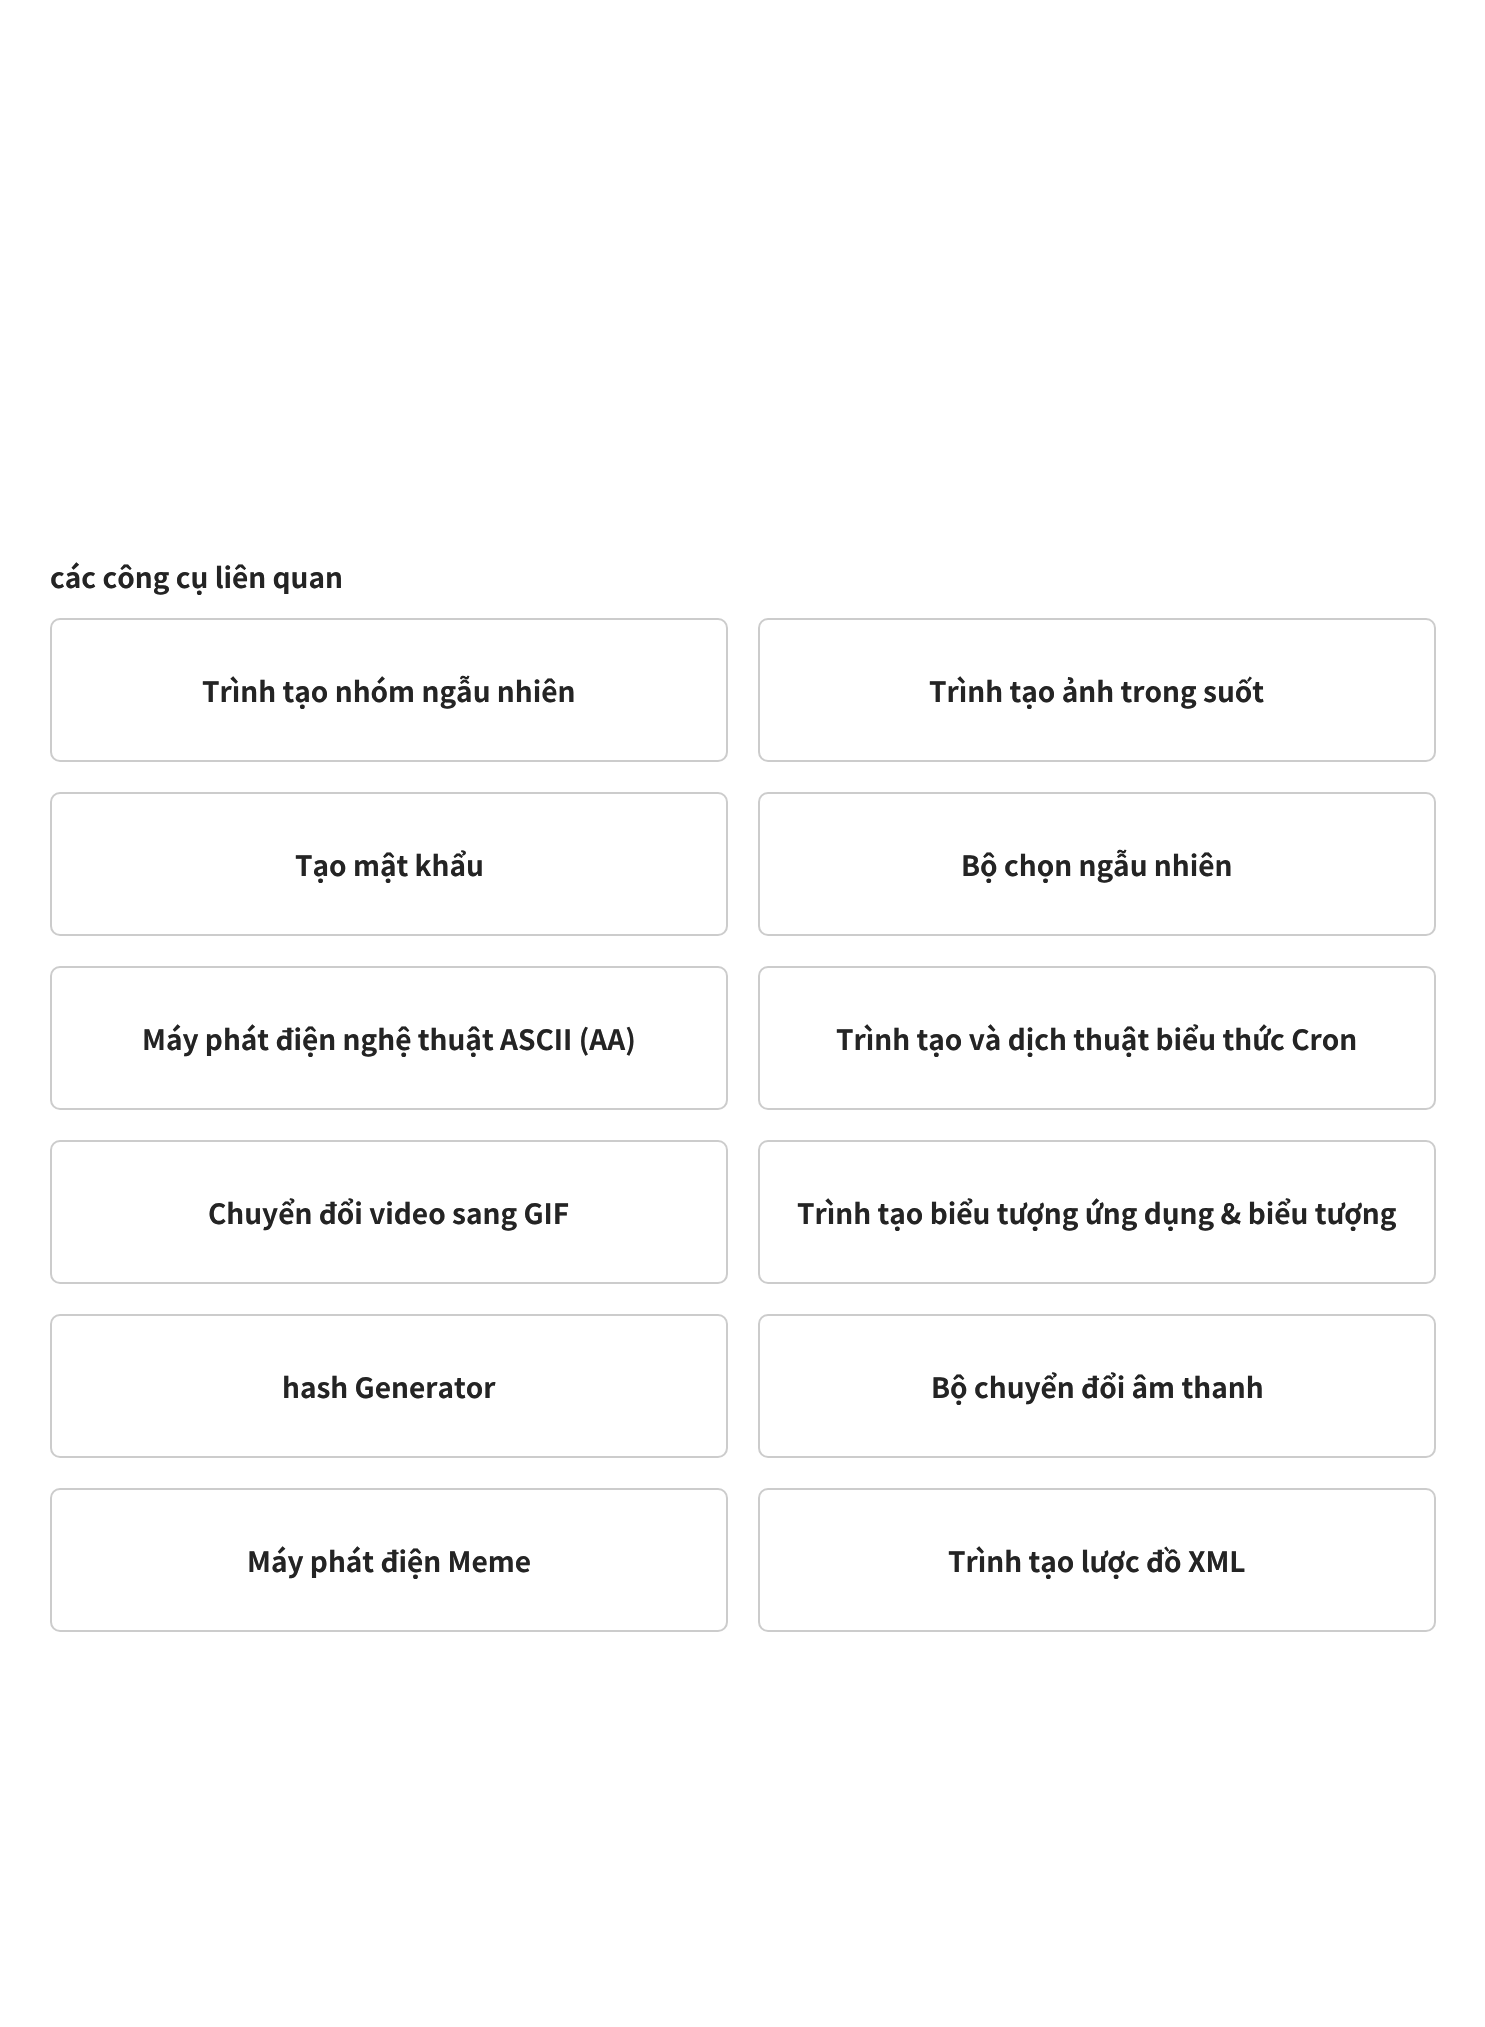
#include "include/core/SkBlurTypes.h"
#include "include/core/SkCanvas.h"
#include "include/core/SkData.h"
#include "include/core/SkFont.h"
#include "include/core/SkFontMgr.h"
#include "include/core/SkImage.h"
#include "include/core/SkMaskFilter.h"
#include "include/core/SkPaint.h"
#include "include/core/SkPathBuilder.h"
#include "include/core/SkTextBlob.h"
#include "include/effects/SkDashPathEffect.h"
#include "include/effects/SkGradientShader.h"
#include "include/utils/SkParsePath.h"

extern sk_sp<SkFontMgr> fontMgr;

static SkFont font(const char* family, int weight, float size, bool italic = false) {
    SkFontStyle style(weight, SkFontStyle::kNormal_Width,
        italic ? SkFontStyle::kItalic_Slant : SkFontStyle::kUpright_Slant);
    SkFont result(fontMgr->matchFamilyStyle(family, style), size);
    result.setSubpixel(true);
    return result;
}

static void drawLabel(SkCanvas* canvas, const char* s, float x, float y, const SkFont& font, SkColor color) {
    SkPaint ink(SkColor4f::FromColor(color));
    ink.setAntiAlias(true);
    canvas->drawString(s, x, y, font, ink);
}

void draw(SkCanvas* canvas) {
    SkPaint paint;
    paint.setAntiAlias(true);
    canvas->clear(0xFFFFFFFF);
    SkFont font1 = font("Noto Sans JP", 700, 28);
    drawLabel(canvas, "các công cụ liên quan", 50, 588, font1, 0xFF242424);
    paint.setStroke(true);
    paint.setStrokeWidth(2);
    paint.setColor(0xFFCCCCCC);
    canvas->drawRoundRect(SkRect::MakeXYWH(51, 619, 676, 142), 9, 9, paint);
    drawLabel(canvas, "Trình tạo nhóm ngẫu nhiên", 202, 702, font1, 0xFF242424);
    canvas->drawRoundRect(SkRect::MakeXYWH(759, 619, 676, 142), 9, 9, paint);
    drawLabel(canvas, "Trình tạo ảnh trong suốt", 929, 702, font1, 0xFF242424);
    canvas->drawRoundRect(SkRect::MakeXYWH(51, 793, 676, 142), 9, 9, paint);
    drawLabel(canvas, "Tạo mật khẩu", 295, 876, font1, 0xFF242424);
    canvas->drawRoundRect(SkRect::MakeXYWH(759, 793, 676, 142), 9, 9, paint);
    drawLabel(canvas, "Bộ chọn ngẫu nhiên", 961, 876, font1, 0xFF242424);
    canvas->drawRoundRect(SkRect::MakeXYWH(51, 967, 676, 142), 9, 9, paint);
    drawLabel(canvas, "Máy phát điện nghệ thuật ASCII (AA)", 142, 1050, font1, 0xFF242424);
    canvas->drawRoundRect(SkRect::MakeXYWH(759, 967, 676, 142), 9, 9, paint);
    drawLabel(canvas, "Trình tạo và dịch thuật biểu thức Cron", 836, 1050, font1, 0xFF242424);
    canvas->drawRoundRect(SkRect::MakeXYWH(51, 1141, 676, 142), 9, 9, paint);
    drawLabel(canvas, "Chuyển đổi video sang GIF", 208, 1224, font1, 0xFF242424);
    canvas->drawRoundRect(SkRect::MakeXYWH(759, 1141, 676, 142), 9, 9, paint);
    drawLabel(canvas, "Trình tạo biểu tượng ứng dụng & biểu tượng", 797, 1224, font1, 0xFF242424);
    canvas->drawRoundRect(SkRect::MakeXYWH(51, 1315, 676, 142), 9, 9, paint);
    drawLabel(canvas, "hash Generator", 282, 1398, font1, 0xFF242424);
    canvas->drawRoundRect(SkRect::MakeXYWH(759, 1315, 676, 142), 9, 9, paint);
    drawLabel(canvas, "Bộ chuyển đổi âm thanh", 931, 1398, font1, 0xFF242424);
    canvas->drawRoundRect(SkRect::MakeXYWH(51, 1489, 676, 142), 9, 9, paint);
    drawLabel(canvas, "Máy phát điện Meme", 247, 1572, font1, 0xFF242424);
    canvas->drawRoundRect(SkRect::MakeXYWH(759, 1489, 676, 142), 9, 9, paint);
    drawLabel(canvas, "Trình tạo lược đồ XML", 948, 1572, font1, 0xFF242424);
}
